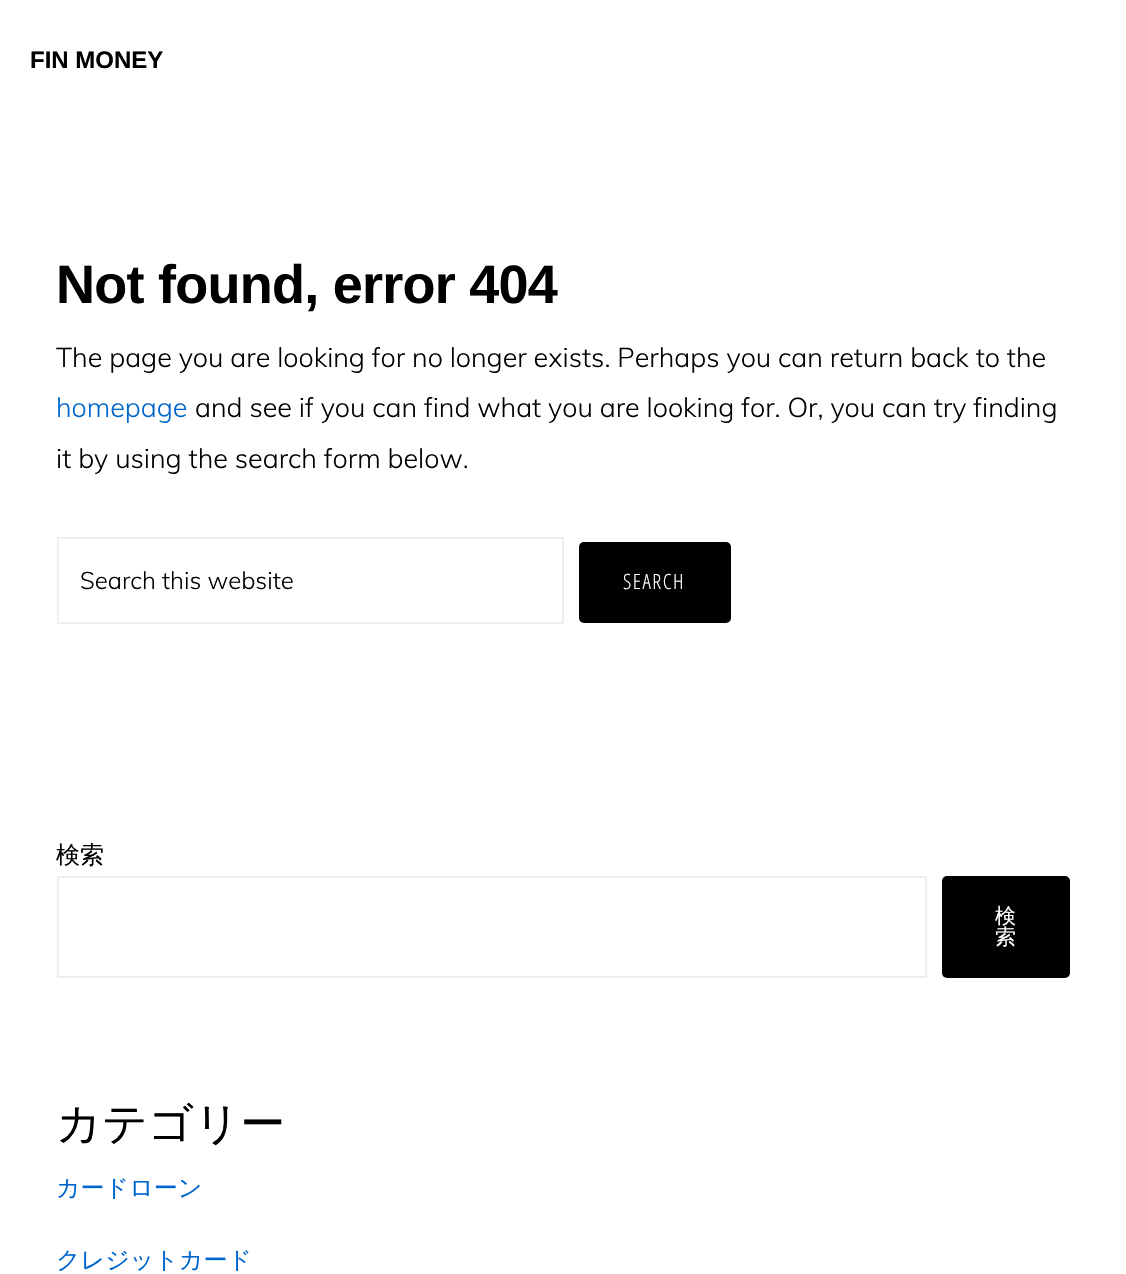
#include "include/core/SkBlurTypes.h"
#include "include/core/SkCanvas.h"
#include "include/core/SkData.h"
#include "include/core/SkFont.h"
#include "include/core/SkFontMgr.h"
#include "include/core/SkImage.h"
#include "include/core/SkMaskFilter.h"
#include "include/core/SkPaint.h"
#include "include/core/SkPathBuilder.h"
#include "include/core/SkTextBlob.h"
#include "include/effects/SkDashPathEffect.h"
#include "include/effects/SkGradientShader.h"
#include "include/utils/SkParsePath.h"

extern sk_sp<SkFontMgr> fontMgr;

static SkFont font(const char* family, int weight, float size, bool italic = false) {
    SkFontStyle style(weight, SkFontStyle::kNormal_Width,
        italic ? SkFontStyle::kItalic_Slant : SkFontStyle::kUpright_Slant);
    SkFont result(fontMgr->matchFamilyStyle(family, style), size);
    result.setSubpixel(true);
    return result;
}

static void drawLabel(SkCanvas* canvas, const char* s, float x, float y, const SkFont& font, SkColor color) {
    SkPaint ink(SkColor4f::FromColor(color));
    ink.setAntiAlias(true);
    canvas->drawString(s, x, y, font, ink);
}

static void drawTracked(SkCanvas* canvas, const char* s, float x, float y, const SkFont& font, const SkPaint& ink, float letter, float word) {
    std::vector<SkGlyphID> glyphs(font.countText(s, strlen(s), SkTextEncoding::kUTF8));
    std::vector<float> xs(glyphs.size());
    font.textToGlyphs(s, strlen(s), SkTextEncoding::kUTF8, glyphs);
    font.getXPos(glyphs, xs, x);
    float extra = 0;
    for (size_t i = 0; i < glyphs.size(); i++) {
        xs[i] += extra;
        extra += letter + word * (glyphs[i] == font.unicharToGlyph(' '));
    }
    canvas->drawTextBlob(SkTextBlob::MakeFromPosHGlyphs(glyphs, xs, y, font), 0, 0, ink);
}

static void fillRRect(SkCanvas* canvas, float x, float y, float w, float h, float radius, SkColor color) {
    SkPaint ink(SkColor4f::FromColor(color));
    ink.setAntiAlias(true);
    canvas->drawRoundRect(SkRect::MakeXYWH(x, y, w, h), radius, radius, ink);
}

void draw(SkCanvas* canvas) {
    SkPaint paint;
    paint.setAntiAlias(true);
    canvas->clear(0xFFFFFFFF);
    SkFont font1 = font("Liberation Sans", 700, 24);
    drawLabel(canvas, "FIN MONEY", 30, 68, font1, 0xFF000000);
    SkFont font2 = font("Liberation Sans", 700, 54);
    paint.setColor(0xFF000000);
    drawTracked(canvas, "Not found, error 404", 56, 303, font2, paint, -0.75f, 0);
    SkFont font3 = font("Muli", 300, 27);
    drawLabel(canvas, "The page you are looking for no longer exists. Perhaps you can return back to the", 56, 367, font3, 0xFF000000);
    drawLabel(canvas, "homepage", 56, 417, font3, 0xFF0066CC);
    drawLabel(canvas, "and see if you can find what you are looking for. Or, you can try finding", 195, 417, font3, 0xFF000000);
    drawLabel(canvas, "it by using the search form below.", 56, 468, font3, 0xFF000000);
    paint.setStroke(true);
    paint.setStrokeWidth(2);
    paint.setColor(0xFFEEEEEE);
    canvas->drawRect(SkRect::MakeXYWH(58, 538, 505, 85), paint);
    SkFont font4 = font("Muli", 300, 24);
    drawLabel(canvas, "Search this website", 80, 589, font4, 0xFF000000);
    fillRRect(canvas, 579, 542, 152, 81, 5, 0xFF000000);
    SkFont font5 = font("Open Sans Condensed", 300, 21);
    paint.setStroke(false);
    paint.setColor(0xFFFFFFFF);
    drawTracked(canvas, "SEARCH", 623, 589, font5, paint, 1.5f, 0);
    SkFont font6 = font("WenQuanYi Zen Hei", 500, 24);
    drawLabel(canvas, "検索", 56, 863, font6, 0xFF000000);
    paint.setStroke(true);
    paint.setColor(0xFFEEEEEE);
    canvas->drawRect(SkRect::MakeXYWH(58, 877, 868, 100), paint);
    fillRRect(canvas, 942, 876, 128, 102, 5, 0xFF000000);
    SkFont font7 = font("WenQuanYi Zen Hei", 500, 21);
    paint.setStroke(false);
    paint.setColor(0xFFFFFFFF);
    drawTracked(canvas, "検", 995, 923, font7, paint, 1.5f, 0);
    drawTracked(canvas, "索", 995, 944, font7, paint, 1.5f, 0);
    SkFont font8 = font("WenQuanYi Zen Hei", 500, 45);
    drawLabel(canvas, "カテゴリー", 56, 1139, font8, 0xFF000000);
    drawLabel(canvas, "カードローン", 56, 1196, font6, 0xFF0066CC);
    drawLabel(canvas, "クレジットカード", 56, 1268, font6, 0xFF0066CC);
}
